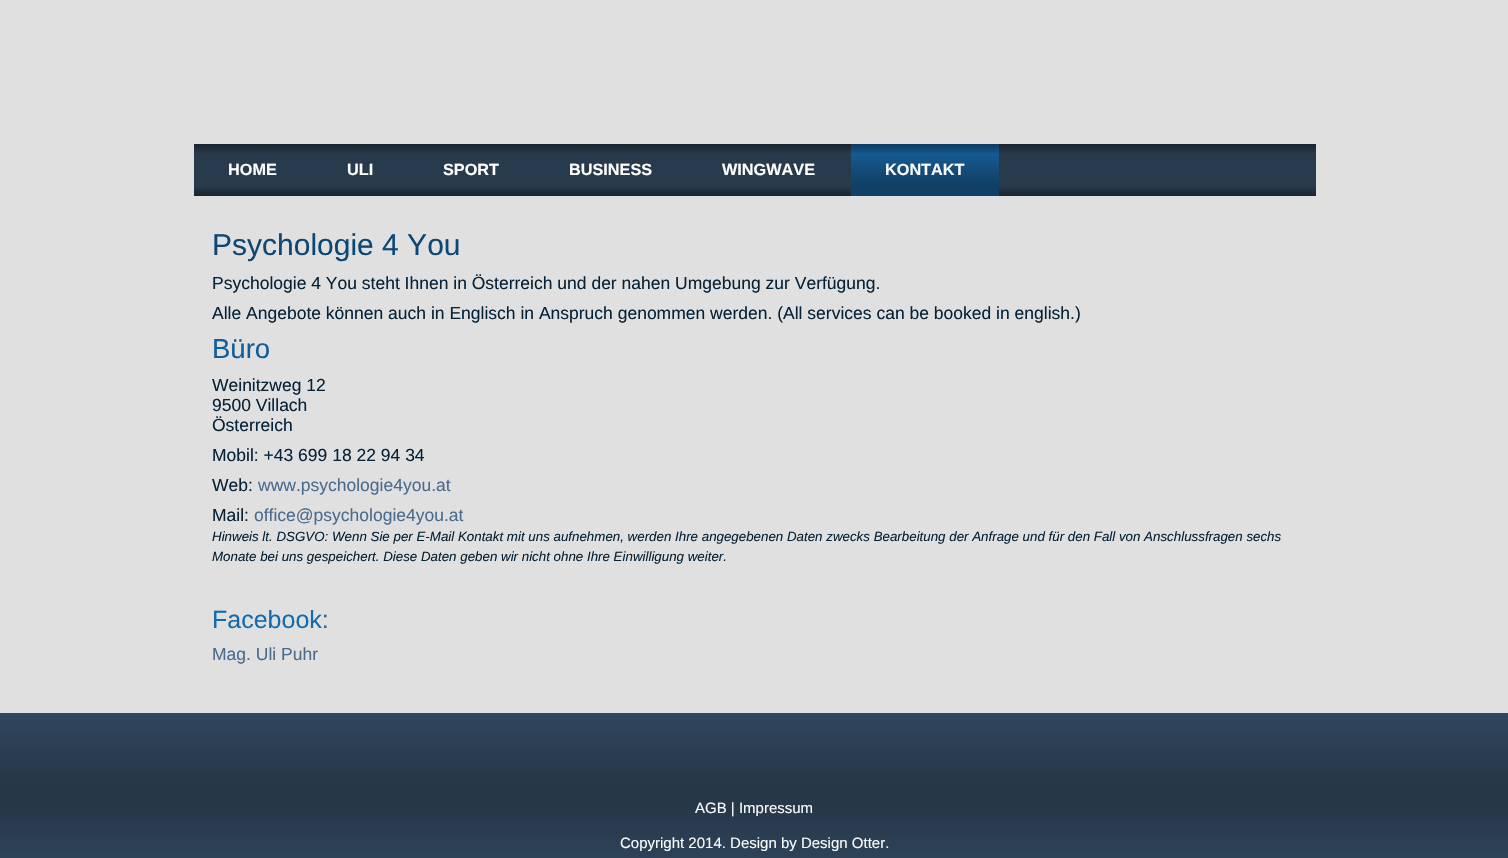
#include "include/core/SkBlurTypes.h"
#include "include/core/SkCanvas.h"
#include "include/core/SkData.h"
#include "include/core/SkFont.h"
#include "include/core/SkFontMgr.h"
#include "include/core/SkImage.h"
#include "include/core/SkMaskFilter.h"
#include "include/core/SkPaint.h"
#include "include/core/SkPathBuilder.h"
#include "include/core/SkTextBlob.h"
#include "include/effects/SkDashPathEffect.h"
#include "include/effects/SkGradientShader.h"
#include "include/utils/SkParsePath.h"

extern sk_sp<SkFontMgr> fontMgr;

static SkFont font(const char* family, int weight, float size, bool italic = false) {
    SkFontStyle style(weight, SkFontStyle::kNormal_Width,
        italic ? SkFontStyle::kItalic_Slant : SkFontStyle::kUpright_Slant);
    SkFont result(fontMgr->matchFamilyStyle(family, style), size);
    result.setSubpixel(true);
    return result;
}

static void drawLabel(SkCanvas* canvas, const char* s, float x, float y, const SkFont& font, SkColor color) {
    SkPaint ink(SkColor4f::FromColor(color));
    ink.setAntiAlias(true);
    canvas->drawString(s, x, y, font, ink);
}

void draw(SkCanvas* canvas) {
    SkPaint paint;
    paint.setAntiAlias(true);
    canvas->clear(0xFFE0E0E0);
    {
        const SkColor colors[] = {0xFF19242F, 0xFF283B4D, 0xFF283B4D, 0xFF19242F};
        const float stops[] = {0, 0.2f, 0.8f, 1};
        const SkPoint ends[] = {{755, 144}, {755, 196}};
        paint.setShader(SkGradientShader::MakeLinear(ends, colors, stops, 4, SkTileMode::kClamp));
        paint.setAlpha(255);
    }
    canvas->drawRect(SkRect::MakeXYWH(194, 144, 1122, 52), paint);
    SkFont font1 = font("Liberation Sans", 700, 16.25f);
    drawLabel(canvas, "HOME", 228, 175, font1, 0xFFFFFFFF);
    drawLabel(canvas, "ULI", 347, 175, font1, 0xFFFFFFFF);
    drawLabel(canvas, "SPORT", 443, 175, font1, 0xFFFFFFFF);
    drawLabel(canvas, "BUSINESS", 569, 175, font1, 0xFFFFFFFF);
    drawLabel(canvas, "WINGWAVE", 722, 175, font1, 0xFFFFFFFF);
    {
        const SkColor colors[] = {0xBD0A4271, 0xBD0F64A9, 0xBD0C5088, 0xBD09406C, 0xBD0B4B7F};
        const float stops[] = {0, 0.2f, 0.5f, 0.8f, 1};
        const SkPoint ends[] = {{925, 144}, {925, 196}};
        paint.setShader(SkGradientShader::MakeLinear(ends, colors, stops, 5, SkTileMode::kClamp));
        paint.setAlpha(255);
    }
    canvas->drawRect(SkRect::MakeXYWH(851, 144, 148, 52), paint);
    drawLabel(canvas, "KONTAKT", 885, 175, font1, 0xFFF9FAFB);
    SkFont font2 = font("Liberation Sans", 400, 30);
    drawLabel(canvas, "Psychologie 4 You", 212, 255, font2, 0xFF0D4773);
    SkFont font3 = font("Liberation Sans", 400, 17.5f);
    drawLabel(canvas, "Psychologie 4 You steht Ihnen in Österreich und der nahen Umgebung zur Verfügung.", 212, 289, font3, 0xFF062237);
    drawLabel(canvas, "Alle Angebote können auch in Englisch in Anspruch genommen werden. (All services can be booked in english.)", 212, 319, font3, 0xFF062237);
    SkFont font4 = font("Liberation Sans", 400, 27.5f);
    drawLabel(canvas, "Büro", 212, 358, font4, 0xFF115D97);
    drawLabel(canvas, "Weinitzweg 12", 212, 391, font3, 0xFF062237);
    drawLabel(canvas, "9500 Villach", 212, 411, font3, 0xFF062237);
    drawLabel(canvas, "Österreich", 212, 431, font3, 0xFF062237);
    drawLabel(canvas, "Mobil: +43 699 18 22 94 34", 212, 461, font3, 0xFF062237);
    drawLabel(canvas, "Web:", 212, 491, font3, 0xFF062237);
    drawLabel(canvas, "www.psychologie4you.at", 258, 491, font3, 0xFF4A6B8C);
    drawLabel(canvas, "Mail:", 212, 521, font3, 0xFF062237);
    drawLabel(canvas, "office@psychologie4you.at", 254, 521, font3, 0xFF4A6B8C);
    SkFont font5 = font("Liberation Sans", 400, 13.33f, true);
    drawLabel(canvas, "Hinweis lt. DSGVO: Wenn Sie per E-Mail Kontakt mit uns aufnehmen, werden Ihre angegebenen Daten zwecks Bearbeitung der Anfrage und für den Fall von Anschlussfragen sechs", 212, 541, font5, 0xFF062237);
    drawLabel(canvas, "Monate bei uns gespeichert. Diese Daten geben wir nicht ohne Ihre Einwilligung weiter.", 212, 561, font5, 0xFF062237);
    SkFont font6 = font("Liberation Sans", 400, 25);
    drawLabel(canvas, "Facebook:", 212, 628, font6, 0xFF136BAE);
    drawLabel(canvas, "Mag. Uli Puhr", 212, 660, font3, 0xFF4A6B8C);
    {
        const SkColor colors[] = {0xFF31475E, 0xFF273849, 0xFF253646, 0xFF273849, 0xFF31475E};
        const float stops[] = {0, 0.4f, 0.5f, 0.6f, 1};
        const SkPoint ends[] = {{754, 712}, {754, 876}};
        paint.setShader(SkGradientShader::MakeLinear(ends, colors, stops, 5, SkTileMode::kClamp));
        paint.setAlpha(255);
    }
    canvas->drawRect(SkRect::MakeXYWH(0, 713, 1508, 145), paint);
    SkFont font7 = font("Liberation Sans", 400, 15);
    drawLabel(canvas, "AGB | Impressum", 695, 813, font7, 0xFFF9FAFB);
    drawLabel(canvas, "Copyright 2014. Design by Design Otter.", 620, 848, font7, 0xFFF9FAFB);
}
